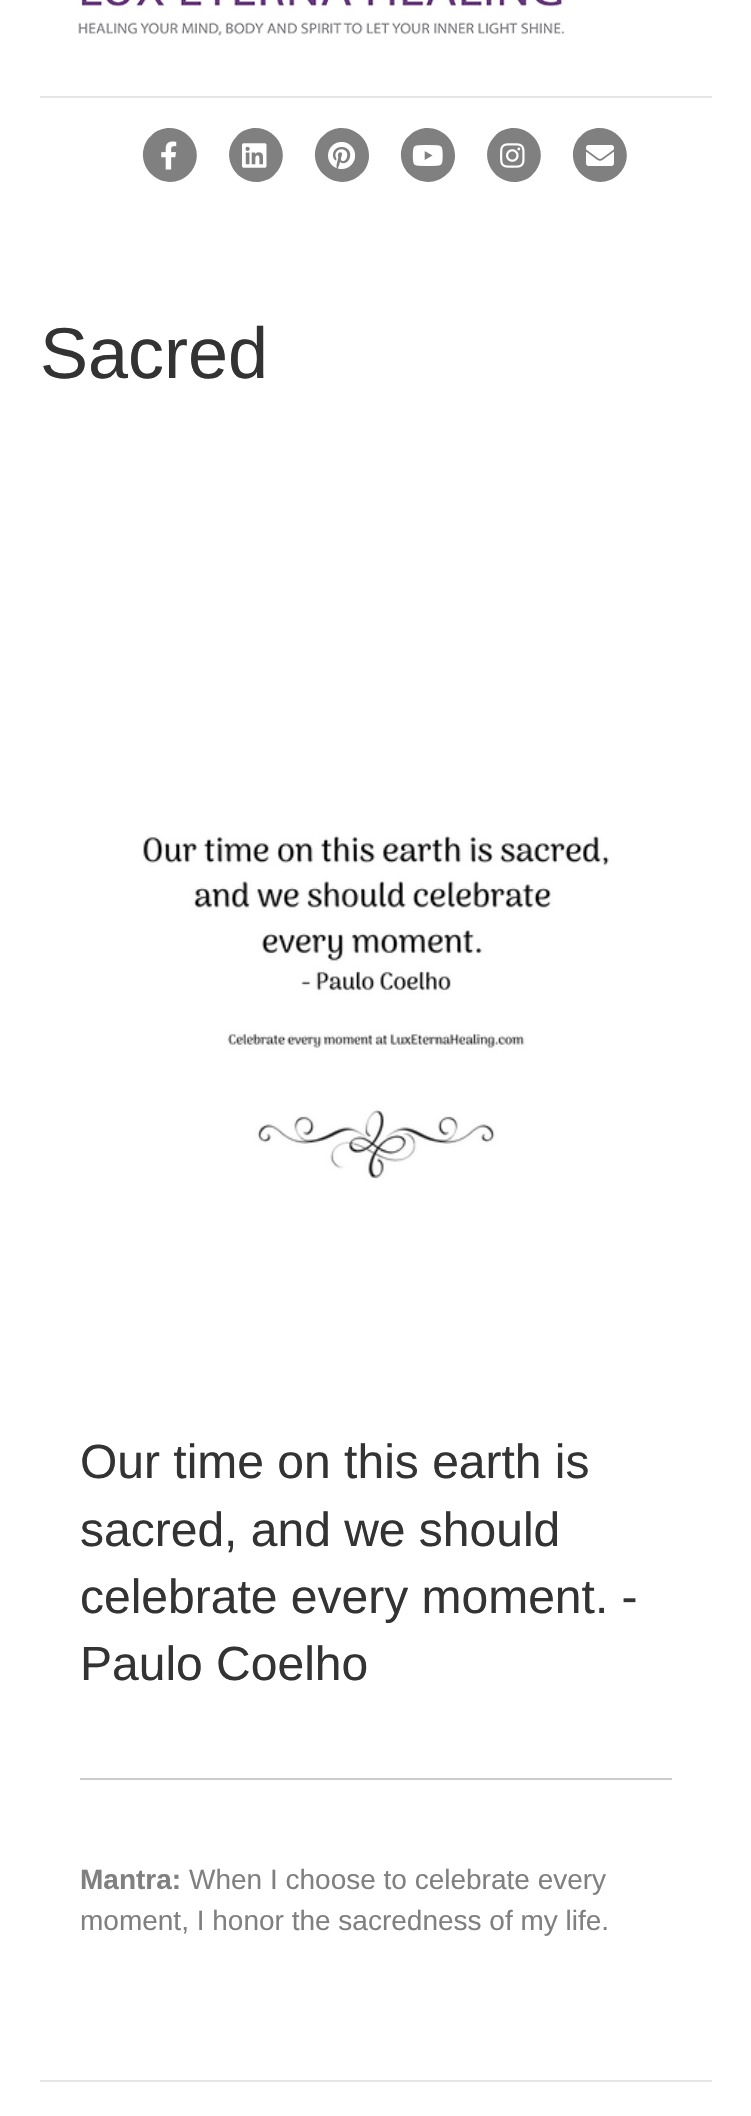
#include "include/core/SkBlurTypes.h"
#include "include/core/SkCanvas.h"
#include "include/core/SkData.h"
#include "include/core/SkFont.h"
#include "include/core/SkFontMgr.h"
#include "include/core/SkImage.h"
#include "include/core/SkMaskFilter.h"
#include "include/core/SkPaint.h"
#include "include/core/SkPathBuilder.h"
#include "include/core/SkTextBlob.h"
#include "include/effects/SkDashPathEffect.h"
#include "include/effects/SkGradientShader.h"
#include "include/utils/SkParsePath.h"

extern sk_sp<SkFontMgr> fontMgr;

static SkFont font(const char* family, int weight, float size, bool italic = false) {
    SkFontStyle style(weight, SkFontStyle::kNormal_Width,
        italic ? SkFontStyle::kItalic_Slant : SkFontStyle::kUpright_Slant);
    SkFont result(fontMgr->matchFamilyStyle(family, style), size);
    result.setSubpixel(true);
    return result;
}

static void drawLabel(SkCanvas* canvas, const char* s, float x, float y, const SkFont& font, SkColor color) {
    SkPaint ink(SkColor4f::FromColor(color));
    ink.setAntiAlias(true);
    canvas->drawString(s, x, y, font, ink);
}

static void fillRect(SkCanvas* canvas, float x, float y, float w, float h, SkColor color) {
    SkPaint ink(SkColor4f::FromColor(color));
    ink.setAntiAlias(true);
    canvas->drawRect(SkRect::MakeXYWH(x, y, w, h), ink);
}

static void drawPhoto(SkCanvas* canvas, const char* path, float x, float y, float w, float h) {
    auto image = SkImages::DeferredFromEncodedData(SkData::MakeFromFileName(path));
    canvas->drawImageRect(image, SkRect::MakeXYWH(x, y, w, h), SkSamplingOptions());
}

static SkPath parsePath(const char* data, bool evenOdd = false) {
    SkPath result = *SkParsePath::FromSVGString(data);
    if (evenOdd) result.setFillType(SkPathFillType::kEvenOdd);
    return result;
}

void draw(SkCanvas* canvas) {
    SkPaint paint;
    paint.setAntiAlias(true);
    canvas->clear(0xFFFFFFFF);
    drawPhoto(canvas, "assets/img1.png", 78, 0, 487, 36);
    fillRect(canvas, 40, 96, 672, 2, 0xFFE6E6E6);
    paint.setColor(0xFF808080);
    canvas->drawPath(parsePath("M151 136C155 131 161 129 167 128C192 126 207 156 189 174C171 192 141 177 143 152C144 146 146 140 151 136Z"), paint);
    drawPhoto(canvas, "assets/img2.png", 161, 141, 16, 29);
    canvas->drawPath(parsePath("M237 136C241 131 247 129 253 128C278 126 293 156 275 174C271 179 265 181 259 182C234 184 219 154 237 136Z"), paint);
    drawPhoto(canvas, "assets/img3.png", 242, 143, 25, 25);
    canvas->drawPath(parsePath("M323 136C341 118 371 133 369 158C368 164 366 170 361 174C343 192 313 177 315 152C316 146 318 140 323 136Z"), paint);
    drawPhoto(canvas, "assets/img4.png", 328, 141, 28, 29);
    canvas->drawPath(parsePath("M409 136C427 118 457 133 455 158C454 164 452 170 447 174C429 192 399 177 401 152C402 146 404 140 409 136Z"), paint);
    drawPhoto(canvas, "assets/img5.png", 412, 145, 31, 21);
    canvas->drawPath(parsePath("M495 136C499 131 505 129 511 128C536 126 551 156 533 174C529 179 523 181 517 182C492 184 477 154 495 136Z"), paint);
    drawPhoto(canvas, "assets/img6.png", 500, 143, 25, 25);
    canvas->drawPath(parsePath("M581 136C585 131 591 129 597 128C622 126 637 156 619 174C601 192 571 177 573 152C574 146 576 140 581 136Z"), paint);
    drawPhoto(canvas, "assets/img7.png", 586, 145, 28, 21);
    SkFont font1 = font("Liberation Sans", 400, 72);
    drawLabel(canvas, "Sacred", 40, 378, font1, 0xFF333333);
    drawPhoto(canvas, "assets/img8.png", 141, 835, 468, 344);
    SkFont font2 = font("Liberation Sans", 400, 48);
    drawLabel(canvas, "Our time on this earth is", 80, 1478, font2, 0xFF333333);
    drawLabel(canvas, "sacred, and we should", 80, 1546, font2, 0xFF333333);
    drawLabel(canvas, "celebrate every moment. -", 80, 1613, font2, 0xFF333333);
    drawLabel(canvas, "Paulo Coelho", 80, 1680, font2, 0xFF333333);
    fillRect(canvas, 80, 1778, 592, 2, 0xFFCCCCCC);
    SkFont font3 = font("Liberation Sans", 700, 28);
    drawLabel(canvas, "Mantra:", 80, 1889, font3, 0xFF808080);
    SkFont font4 = font("Liberation Sans", 400, 28);
    drawLabel(canvas, "When I choose to celebrate every", 189, 1889, font4, 0xFF808080);
    drawLabel(canvas, "moment, I honor the sacredness of my life.", 80, 1930, font4, 0xFF808080);
    fillRect(canvas, 40, 2080, 672, 2, 0xFFE6E6E6);
}
